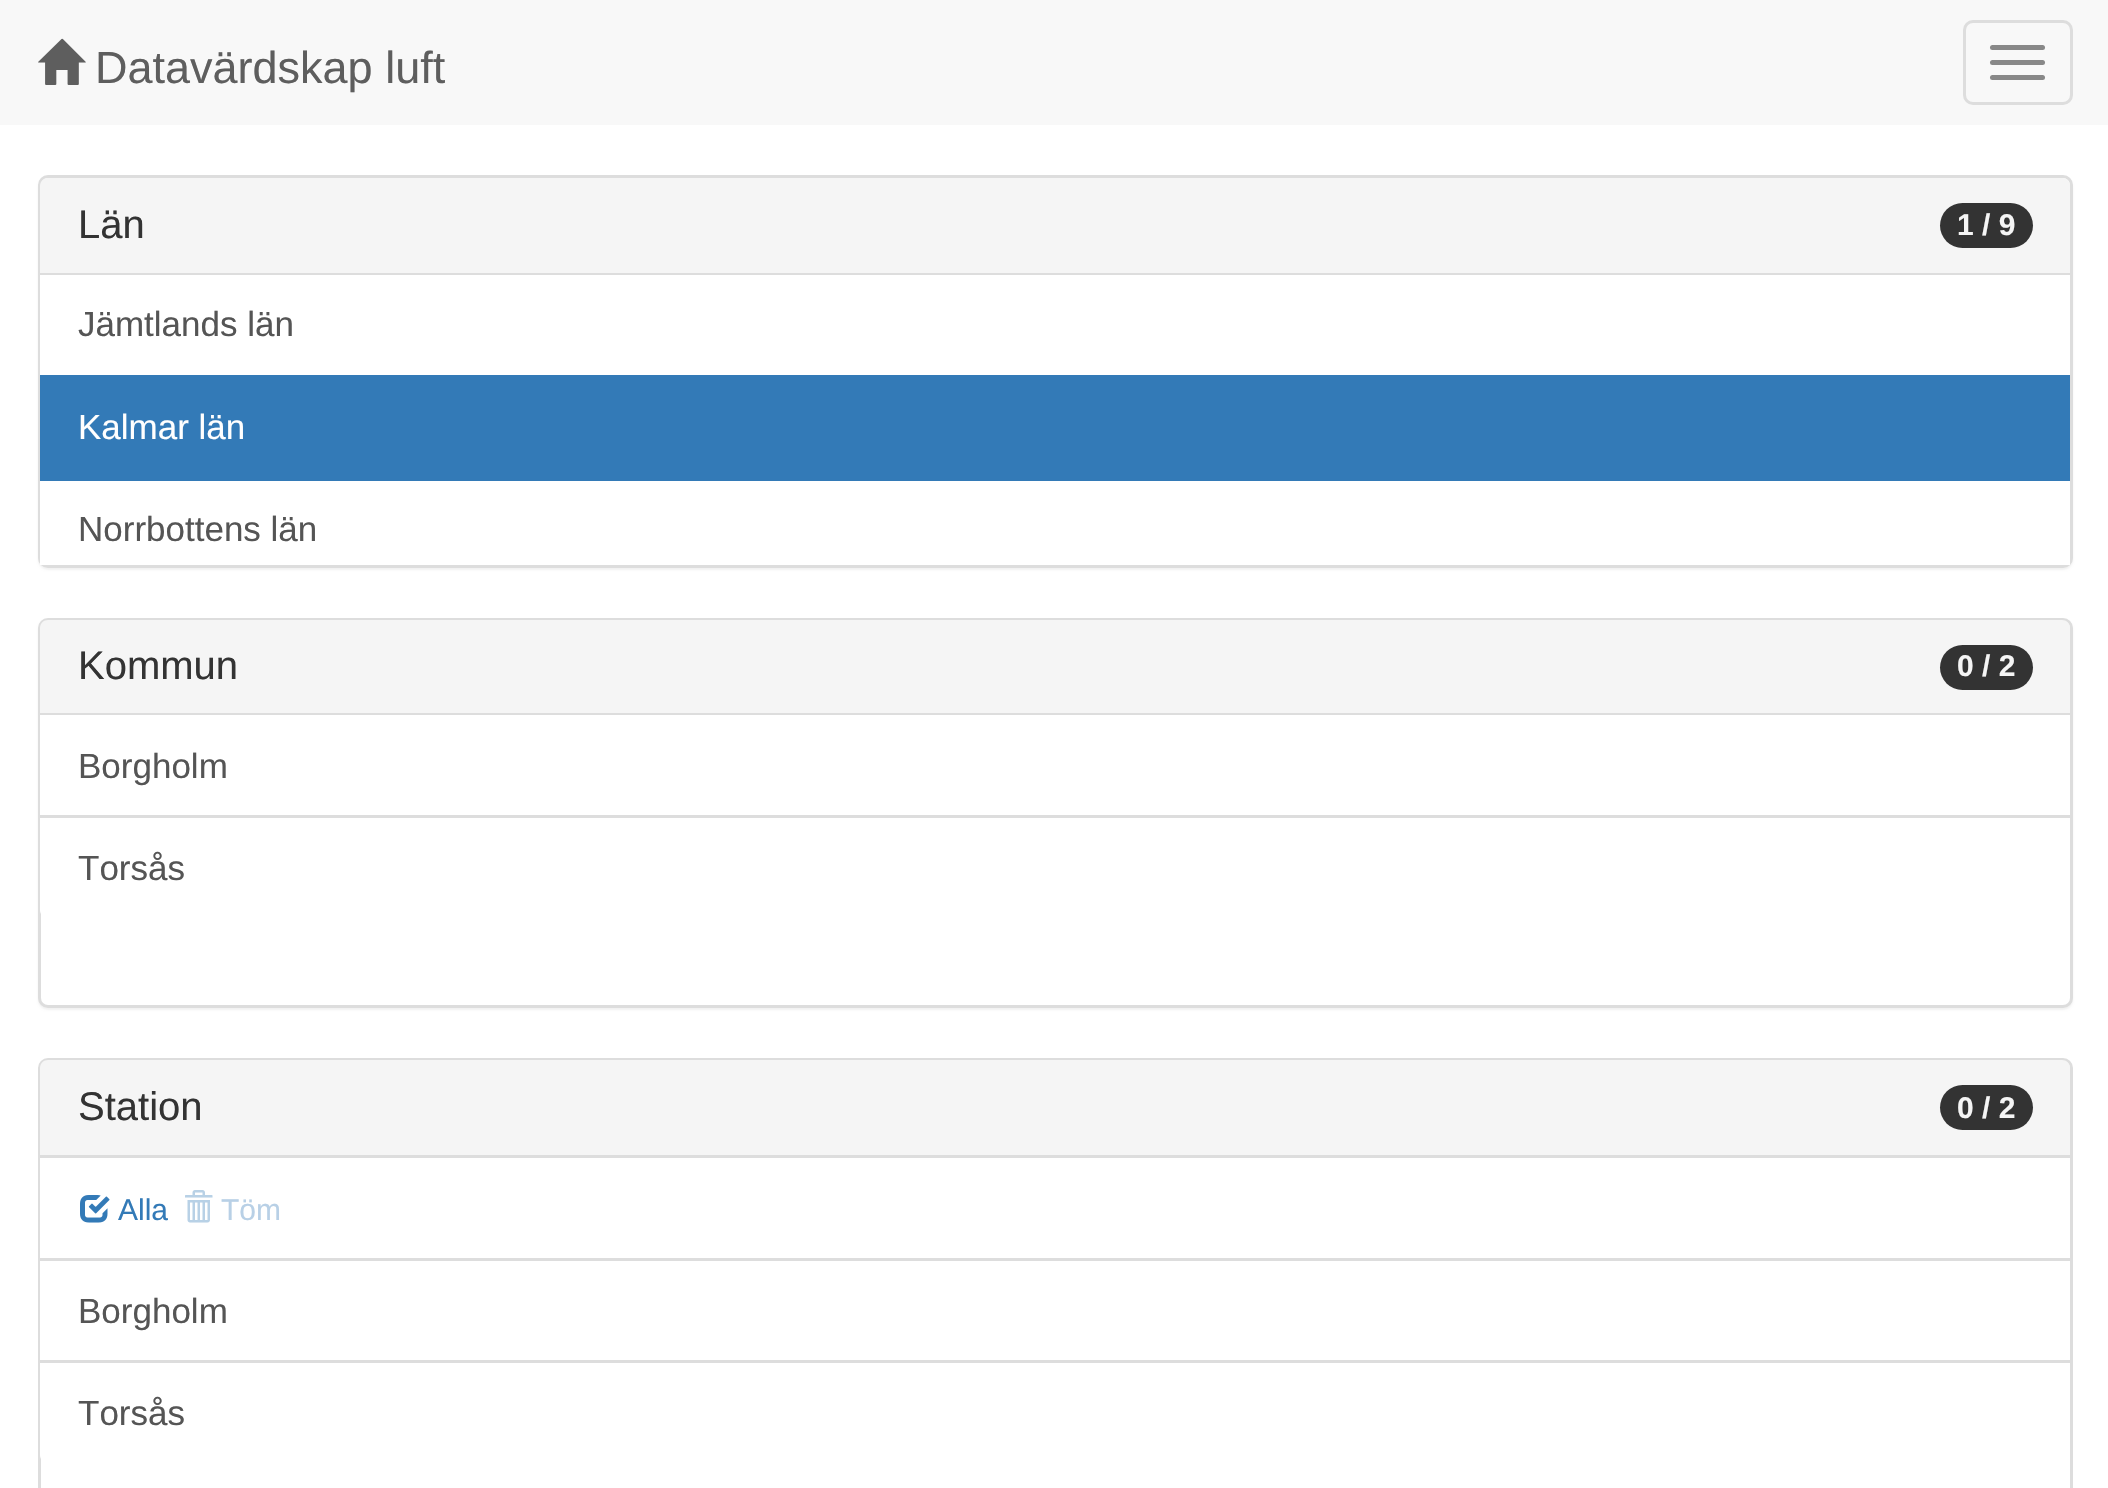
#include "include/core/SkBlurTypes.h"
#include "include/core/SkCanvas.h"
#include "include/core/SkData.h"
#include "include/core/SkFont.h"
#include "include/core/SkFontMgr.h"
#include "include/core/SkImage.h"
#include "include/core/SkMaskFilter.h"
#include "include/core/SkPaint.h"
#include "include/core/SkPathBuilder.h"
#include "include/core/SkTextBlob.h"
#include "include/effects/SkDashPathEffect.h"
#include "include/effects/SkGradientShader.h"
#include "include/utils/SkParsePath.h"

extern sk_sp<SkFontMgr> fontMgr;

static SkFont font(const char* family, int weight, float size, bool italic = false) {
    SkFontStyle style(weight, SkFontStyle::kNormal_Width,
        italic ? SkFontStyle::kItalic_Slant : SkFontStyle::kUpright_Slant);
    SkFont result(fontMgr->matchFamilyStyle(family, style), size);
    result.setSubpixel(true);
    return result;
}

static void drawLabel(SkCanvas* canvas, const char* s, float x, float y, const SkFont& font, SkColor color) {
    SkPaint ink(SkColor4f::FromColor(color));
    ink.setAntiAlias(true);
    canvas->drawString(s, x, y, font, ink);
}

static void fillRect(SkCanvas* canvas, float x, float y, float w, float h, SkColor color) {
    SkPaint ink(SkColor4f::FromColor(color));
    ink.setAntiAlias(true);
    canvas->drawRect(SkRect::MakeXYWH(x, y, w, h), ink);
}

static void fillRRect(SkCanvas* canvas, float x, float y, float w, float h, float radius, SkColor color) {
    SkPaint ink(SkColor4f::FromColor(color));
    ink.setAntiAlias(true);
    canvas->drawRoundRect(SkRect::MakeXYWH(x, y, w, h), radius, radius, ink);
}

static void drawPhoto(SkCanvas* canvas, const char* path, float x, float y, float w, float h) {
    auto image = SkImages::DeferredFromEncodedData(SkData::MakeFromFileName(path));
    canvas->drawImageRect(image, SkRect::MakeXYWH(x, y, w, h), SkSamplingOptions());
}

static SkPath parsePath(const char* data, bool evenOdd = false) {
    SkPath result = *SkParsePath::FromSVGString(data);
    if (evenOdd) result.setFillType(SkPathFillType::kEvenOdd);
    return result;
}

void draw(SkCanvas* canvas) {
    SkPaint paint;
    paint.setAntiAlias(true);
    canvas->clear(0xFFFFFFFF);
    fillRect(canvas, 0, 0, 2108, 125, 0xFFF8F8F8);
    drawPhoto(canvas, "assets/img1.png", 38, 38, 48, 47);
    SkFont font1 = font("Liberation Sans", 400, 45);
    drawLabel(canvas, "Datavärdskap luft", 95, 83, font1, 0xFF5E5E5E);
    paint.setStroke(true);
    paint.setStrokeWidth(3);
    paint.setColor(0xFFDDDDDD);
    canvas->drawRoundRect(SkRect::MakeXYWH(1964.5f, 21.5f, 107, 82), 8.5f, 8.5f, paint);
    fillRRect(canvas, 1990, 45, 55, 5, 2.5f, 0xFF888888);
    fillRRect(canvas, 1990, 60, 55, 5, 2.5f, 0xFF888888);
    fillRRect(canvas, 1990, 75, 55, 5, 2.5f, 0xFF888888);
    paint.setStroke(false);
    paint.setColor(0x0D000000);
    paint.setMaskFilter(SkMaskFilter::MakeBlur(kNormal_SkBlurStyle, 1));
    canvas->drawRoundRect(SkRect::MakeXYWH(38, 178, 2035, 392), 10, 10, paint);
    paint.setMaskFilter(nullptr);
    paint.setColor(0xFFFFFFFF);
    canvas->drawRoundRect(SkRect::MakeXYWH(39.5f, 176.5f, 2032, 390), 8.5f, 8.5f, paint);
    paint.setStroke(true);
    paint.setColor(0xFFDDDDDD);
    canvas->drawRoundRect(SkRect::MakeXYWH(39.5f, 176.5f, 2032, 390), 8.5f, 8.5f, paint);
    paint.setStroke(false);
    paint.setColor(0xFFF5F5F5);
    canvas->drawPath(parsePath("M48 178H2062C2066.5 178 2070 181.5 2070 186V275H40V186C40 181.5 43.5 178 48 178Z"), paint);
    fillRect(canvas, 40, 273, 2030, 2, 0xFFDDDDDD);
    SkFont font2 = font("Liberation Sans", 400, 40);
    drawLabel(canvas, "Län", 78, 238, font2, 0xFF333333);
    fillRRect(canvas, 1940, 203, 93, 45, 22.5f, 0xFF333333);
    SkFont font3 = font("Liberation Sans", 700, 30);
    drawLabel(canvas, "1 / 9", 1957, 235, font3, 0xFFF5F5F5);
    fillRect(canvas, 40, 275, 1, 100, 0xFFFFFFFF);
    SkFont font4 = font("Liberation Sans", 400, 35);
    drawLabel(canvas, "Jämtlands län", 78, 336, font4, 0xFF555555);
    fillRect(canvas, 40, 375, 2030, 106, 0xFF337AB7);
    drawLabel(canvas, "Kalmar län", 78, 439, font4, 0xFFFFFFFF);
    fillRect(canvas, 40, 481, 2030, 84, 0xFFFFFFFF);
    drawLabel(canvas, "Norrbottens län", 78, 541, font4, 0xFF555555);
    paint.setColor(0x0D000000);
    paint.setMaskFilter(SkMaskFilter::MakeBlur(kNormal_SkBlurStyle, 1));
    canvas->drawRoundRect(SkRect::MakeXYWH(38, 620, 2035, 390), 10, 10, paint);
    paint.setMaskFilter(nullptr);
    paint.setColor(0xFFFFFFFF);
    canvas->drawRoundRect(SkRect::MakeXYWH(39.5f, 619.5f, 2032, 387), 8.5f, 8.5f, paint);
    paint.setStroke(true);
    paint.setColor(0xFFDDDDDD);
    canvas->drawRoundRect(SkRect::MakeXYWH(39.5f, 619.5f, 2032, 387), 8.5f, 8.5f, paint);
    paint.setStroke(false);
    paint.setColor(0xFFF5F5F5);
    canvas->drawPath(parsePath("M48 620H2062C2066.5 620 2070 623.5 2070 628V715H40V628C40 623.5 43.5 620 48 620Z"), paint);
    fillRect(canvas, 40, 713, 2030, 2, 0xFFDDDDDD);
    drawLabel(canvas, "Kommun", 78, 679, font2, 0xFF333333);
    fillRRect(canvas, 1940, 645, 93, 45, 22.5f, 0xFF333333);
    drawLabel(canvas, "0 / 2", 1957, 676, font3, 0xFFF5F5F5);
    fillRect(canvas, 40, 715, 1, 100, 0xFFFFFFFF);
    drawLabel(canvas, "Borgholm", 78, 778, font4, 0xFF555555);
    paint.setColor(0xFFFFFFFF);
    canvas->drawPath(parsePath("M40 815H2070V910C2070 914.5 2066.5 918 2062 918H48C43.5 918 40 914.5 40 910Z"), paint);
    fillRect(canvas, 40, 815, 2030, 3, 0xFFDDDDDD);
    drawLabel(canvas, "Torsås", 78, 880, font4, 0xFF555555);
    paint.setStroke(true);
    paint.setColor(0xFFDDDDDD);
    canvas->drawRoundRect(SkRect::MakeXYWH(39.5f, 1059.5f, 2032, 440), 8.5f, 8.5f, paint);
    paint.setStroke(false);
    paint.setColor(0xFFF5F5F5);
    canvas->drawPath(parsePath("M48 1060H2062C2066.5 1060 2070 1063.5 2070 1068V1158H40V1068C40 1063.5 43.5 1060 48 1060Z"), paint);
    fillRect(canvas, 40, 1155, 2030, 3, 0xFFDDDDDD);
    drawLabel(canvas, "Station", 78, 1120, font2, 0xFF333333);
    fillRRect(canvas, 1940, 1085, 93, 45, 22.5f, 0xFF333333);
    drawLabel(canvas, "0 / 2", 1957, 1118, font3, 0xFFF5F5F5);
    fillRect(canvas, 40, 1158, 1, 100, 0xFFFFFFFF);
    drawPhoto(canvas, "assets/img2.png", 80, 1195, 30, 28);
    SkFont font5 = font("Liberation Sans", 400, 30);
    drawLabel(canvas, "Alla", 118, 1220, font5, 0xFF337AB7);
    drawPhoto(canvas, "assets/img3.png", 185, 1190, 28, 33);
    drawLabel(canvas, "Töm", 221, 1220, font5, 0xFFB8D0E6);
    fillRect(canvas, 40, 1261, 1, 99, 0xFFFFFFFF);
    fillRect(canvas, 40, 1258, 2030, 3, 0xFFDDDDDD);
    drawLabel(canvas, "Borgholm", 78, 1323, font4, 0xFF555555);
    paint.setColor(0xFFFFFFFF);
    canvas->drawPath(parsePath("M40 1360H2070V1455C2070 1459.5 2066.5 1463 2062 1463H48C43.5 1463 40 1459.5 40 1455Z"), paint);
    fillRect(canvas, 40, 1360, 2030, 3, 0xFFDDDDDD);
    drawLabel(canvas, "Torsås", 78, 1425, font4, 0xFF555555);
}
